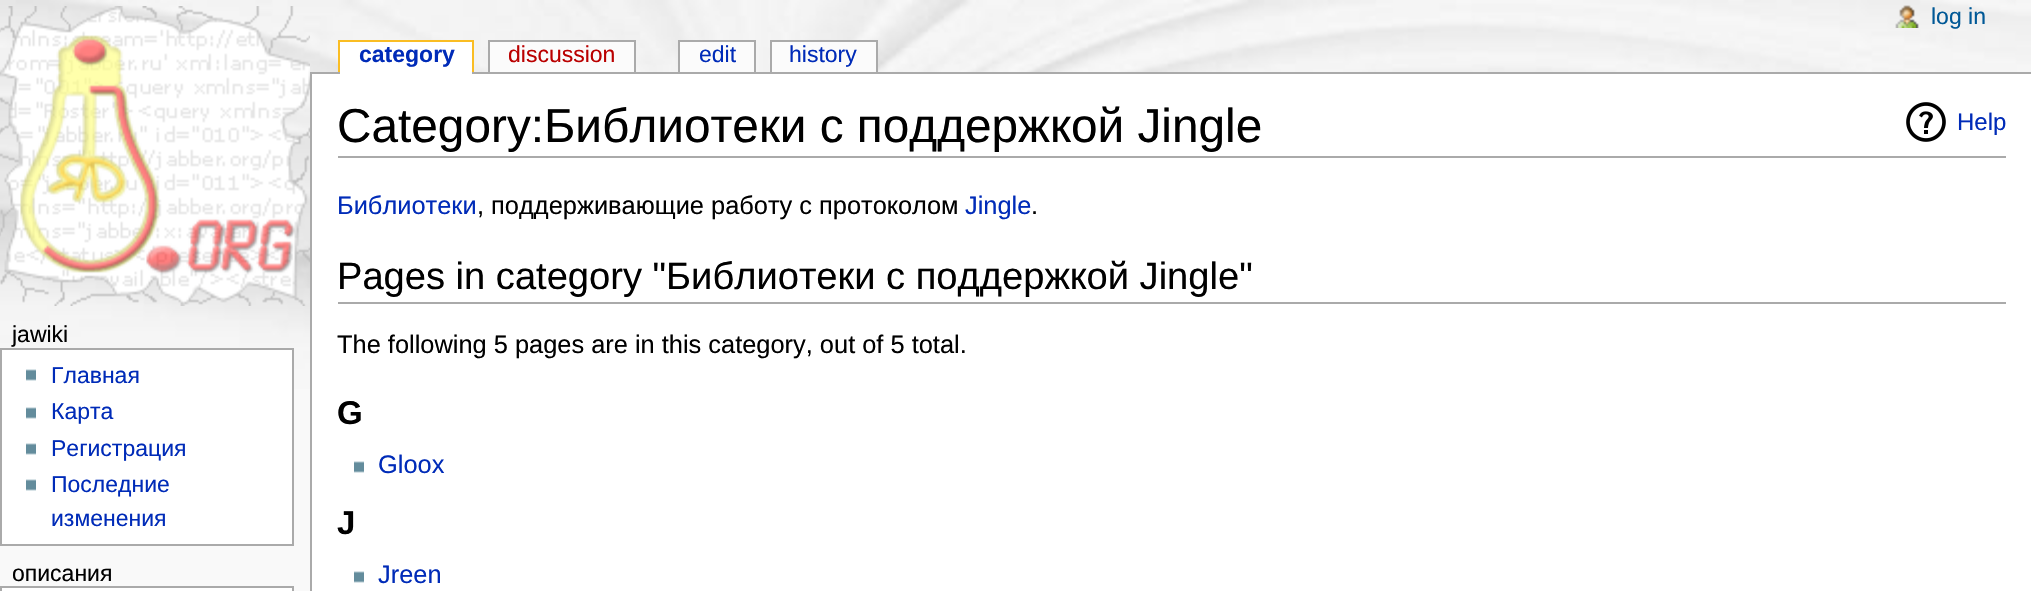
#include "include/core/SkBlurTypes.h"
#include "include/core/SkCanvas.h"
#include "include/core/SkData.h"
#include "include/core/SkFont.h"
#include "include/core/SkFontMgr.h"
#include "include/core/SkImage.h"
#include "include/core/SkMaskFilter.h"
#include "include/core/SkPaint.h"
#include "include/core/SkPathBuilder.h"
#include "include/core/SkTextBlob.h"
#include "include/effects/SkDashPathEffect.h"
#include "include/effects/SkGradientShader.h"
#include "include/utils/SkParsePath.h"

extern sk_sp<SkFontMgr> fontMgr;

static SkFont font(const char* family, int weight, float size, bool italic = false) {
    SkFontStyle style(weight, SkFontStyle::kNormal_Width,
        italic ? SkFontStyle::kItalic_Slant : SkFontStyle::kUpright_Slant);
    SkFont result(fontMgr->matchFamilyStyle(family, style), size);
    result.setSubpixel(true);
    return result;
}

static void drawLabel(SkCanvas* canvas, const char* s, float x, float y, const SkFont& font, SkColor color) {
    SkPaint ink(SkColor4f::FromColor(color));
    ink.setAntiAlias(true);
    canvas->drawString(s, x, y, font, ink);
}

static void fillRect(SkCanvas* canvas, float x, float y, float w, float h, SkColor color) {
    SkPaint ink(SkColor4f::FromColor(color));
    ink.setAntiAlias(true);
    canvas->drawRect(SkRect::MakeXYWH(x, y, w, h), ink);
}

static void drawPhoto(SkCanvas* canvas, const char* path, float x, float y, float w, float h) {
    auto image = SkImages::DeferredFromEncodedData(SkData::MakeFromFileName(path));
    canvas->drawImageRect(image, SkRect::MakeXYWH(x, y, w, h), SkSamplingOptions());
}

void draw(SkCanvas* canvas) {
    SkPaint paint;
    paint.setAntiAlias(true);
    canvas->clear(0xFFF9F9F9);
    drawPhoto(canvas, "assets/img1.png", 0, 0, 2031, 389);
    drawPhoto(canvas, "assets/img2.png", 0, 6, 310, 300);
    drawPhoto(canvas, "assets/img3.png", 1895, 5, 24, 23);
    SkFont font1 = font("Liberation Sans", 400, 23);
    drawLabel(canvas, "log in", 1931, 24, font1, 0xFF005896);
    fillRect(canvas, 310, 72, 1721, 2, 0xFFAAAAAA);
    fillRect(canvas, 340, 42, 132, 32, 0xFFFFFFFF);
    SkFont font2 = font("Liberation Sans", 700, 23);
    drawLabel(canvas, "category", 359, 62, font2, 0xFF002BB8);
    fillRect(canvas, 338, 40, 136, 2, 0xFFFABD23);
    fillRect(canvas, 472, 40, 2, 32, 0xFFFABD23);
    fillRect(canvas, 338, 40, 2, 32, 0xFFFABD23);
    fillRect(canvas, 490, 42, 144, 30, 0xFFFBFBFB);
    drawLabel(canvas, "discussion", 508, 62, font1, 0xFFBA0000);
    fillRect(canvas, 488, 40, 148, 2, 0xFFAAAAAA);
    fillRect(canvas, 634, 40, 2, 32, 0xFFAAAAAA);
    fillRect(canvas, 488, 40, 2, 32, 0xFFAAAAAA);
    fillRect(canvas, 680, 42, 74, 30, 0xFFFBFBFB);
    drawLabel(canvas, "edit", 699, 62, font1, 0xFF002BB8);
    fillRect(canvas, 678, 40, 78, 2, 0xFFAAAAAA);
    fillRect(canvas, 754, 40, 2, 32, 0xFFAAAAAA);
    fillRect(canvas, 678, 40, 2, 32, 0xFFAAAAAA);
    fillRect(canvas, 772, 42, 104, 30, 0xFFFBFBFB);
    drawLabel(canvas, "history", 789, 62, font1, 0xFF002BB8);
    fillRect(canvas, 770, 40, 108, 2, 0xFFAAAAAA);
    fillRect(canvas, 876, 40, 2, 32, 0xFFAAAAAA);
    fillRect(canvas, 770, 40, 2, 32, 0xFFAAAAAA);
    drawLabel(canvas, "jawiki", 12, 342, font1, 0xFF000000);
    paint.setColor(0xFFFFFFFF);
    canvas->drawRect(SkRect::MakeXYWH(1, 349, 292, 196), paint);
    paint.setStroke(true);
    paint.setStrokeWidth(2);
    paint.setColor(0xFFAAAAAA);
    canvas->drawRect(SkRect::MakeXYWH(1, 349, 292, 196), paint);
    drawPhoto(canvas, "assets/img4.png", 26, 369, 10, 12);
    drawLabel(canvas, "Главная", 51, 383, font1, 0xFF002BB8);
    drawPhoto(canvas, "assets/img4.png", 26, 407, 10, 12);
    drawLabel(canvas, "Карта", 51, 419, font1, 0xFF002BB8);
    drawPhoto(canvas, "assets/img4.png", 26, 443, 10, 12);
    drawLabel(canvas, "Регистрация", 51, 456, font1, 0xFF002BB8);
    drawPhoto(canvas, "assets/img4.png", 26, 479, 10, 12);
    drawLabel(canvas, "Последние", 51, 492, font1, 0xFF002BB8);
    drawLabel(canvas, "изменения", 51, 526, font1, 0xFF002BB8);
    drawLabel(canvas, "описания", 12, 581, font1, 0xFF000000);
    paint.setStroke(false);
    paint.setColor(0xFFFFFFFF);
    canvas->drawRect(SkRect::MakeXYWH(1, 587, 292, 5), paint);
    paint.setStroke(true);
    paint.setColor(0xFFAAAAAA);
    canvas->drawRect(SkRect::MakeXYWH(1, 587, 292, 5), paint);
    fillRect(canvas, 312, 74, 1719, 517, 0xFFFFFFFF);
    fillRect(canvas, 310, 72, 2, 519, 0xFFAAAAAA);
    fillRect(canvas, 338, 156, 1668, 2, 0xFFAAAAAA);
    SkFont font3 = font("Liberation Sans", 400, 47.75f);
    drawLabel(canvas, "Category:Библиотеки с поддержкой Jingle", 337, 142, font3, 0xFF000000);
    drawPhoto(canvas, "assets/img5.png", 1906, 102, 40, 40);
    SkFont font4 = font("Liberation Sans", 400, 24);
    drawLabel(canvas, "Help", 1957, 130, font4, 0xFF002BB8);
    SkFont font5 = font("Liberation Sans", 400, 25.4f);
    drawLabel(canvas, "Библиотеки", 337, 214, font5, 0xFF002BB8);
    drawLabel(canvas, ", поддерживающие работу с протоколом", 477, 214, font5, 0xFF000000);
    drawLabel(canvas, "Jingle", 965, 214, font5, 0xFF002BB8);
    drawLabel(canvas, ".", 1031, 214, font5, 0xFF000000);
    fillRect(canvas, 338, 302, 1668, 2, 0xFFAAAAAA);
    SkFont font6 = font("Liberation Sans", 400, 38.1f);
    drawLabel(canvas, "Pages in category \"Библиотеки с поддержкой Jingle\"", 337, 289, font6, 0xFF000000);
    drawLabel(canvas, "The following 5 pages are in this category, out of 5 total.", 337, 353, font5, 0xFF000000);
    SkFont font7 = font("Liberation Sans", 700, 33);
    drawLabel(canvas, "G", 337, 424, font7, 0xFF000000);
    drawPhoto(canvas, "assets/img4.png", 354, 461, 10, 12);
    drawLabel(canvas, "Gloox", 378, 473, font5, 0xFF002BB8);
    drawLabel(canvas, "J", 337, 534, font7, 0xFF000000);
    drawPhoto(canvas, "assets/img4.png", 354, 571, 10, 12);
    drawLabel(canvas, "Jreen", 378, 583, font5, 0xFF002BB8);
}
